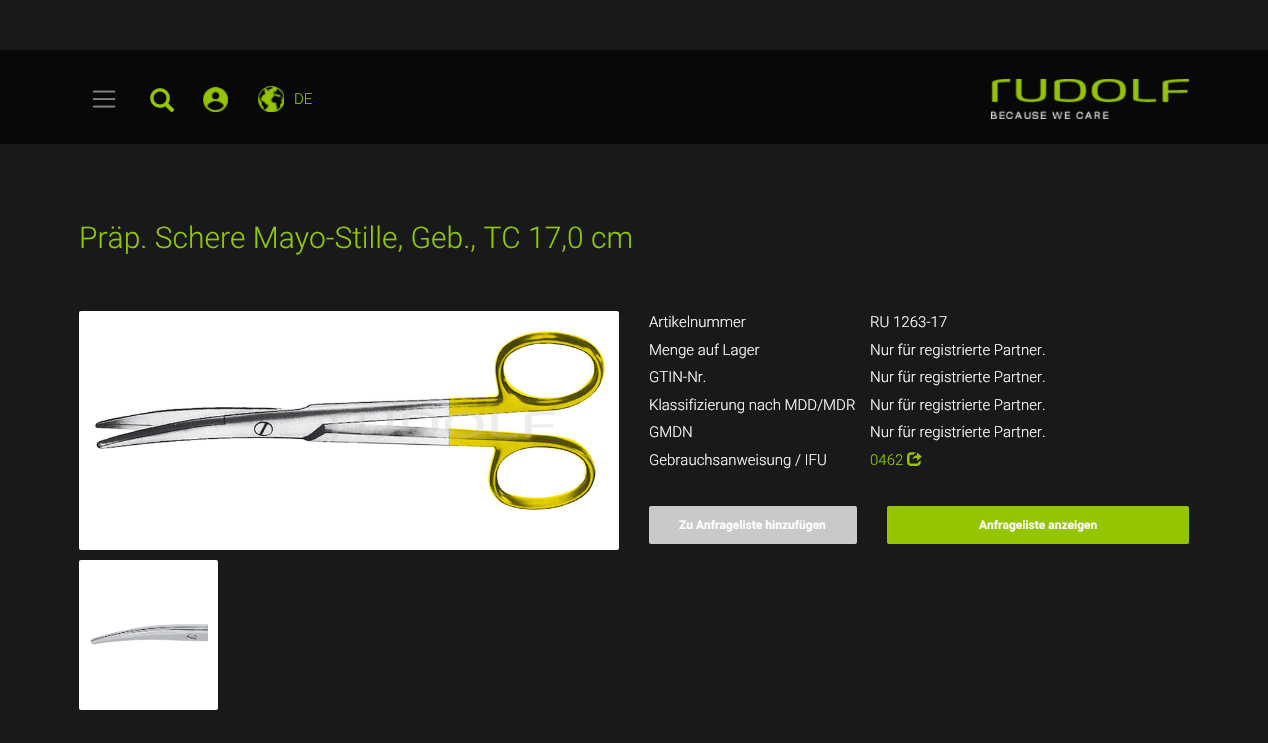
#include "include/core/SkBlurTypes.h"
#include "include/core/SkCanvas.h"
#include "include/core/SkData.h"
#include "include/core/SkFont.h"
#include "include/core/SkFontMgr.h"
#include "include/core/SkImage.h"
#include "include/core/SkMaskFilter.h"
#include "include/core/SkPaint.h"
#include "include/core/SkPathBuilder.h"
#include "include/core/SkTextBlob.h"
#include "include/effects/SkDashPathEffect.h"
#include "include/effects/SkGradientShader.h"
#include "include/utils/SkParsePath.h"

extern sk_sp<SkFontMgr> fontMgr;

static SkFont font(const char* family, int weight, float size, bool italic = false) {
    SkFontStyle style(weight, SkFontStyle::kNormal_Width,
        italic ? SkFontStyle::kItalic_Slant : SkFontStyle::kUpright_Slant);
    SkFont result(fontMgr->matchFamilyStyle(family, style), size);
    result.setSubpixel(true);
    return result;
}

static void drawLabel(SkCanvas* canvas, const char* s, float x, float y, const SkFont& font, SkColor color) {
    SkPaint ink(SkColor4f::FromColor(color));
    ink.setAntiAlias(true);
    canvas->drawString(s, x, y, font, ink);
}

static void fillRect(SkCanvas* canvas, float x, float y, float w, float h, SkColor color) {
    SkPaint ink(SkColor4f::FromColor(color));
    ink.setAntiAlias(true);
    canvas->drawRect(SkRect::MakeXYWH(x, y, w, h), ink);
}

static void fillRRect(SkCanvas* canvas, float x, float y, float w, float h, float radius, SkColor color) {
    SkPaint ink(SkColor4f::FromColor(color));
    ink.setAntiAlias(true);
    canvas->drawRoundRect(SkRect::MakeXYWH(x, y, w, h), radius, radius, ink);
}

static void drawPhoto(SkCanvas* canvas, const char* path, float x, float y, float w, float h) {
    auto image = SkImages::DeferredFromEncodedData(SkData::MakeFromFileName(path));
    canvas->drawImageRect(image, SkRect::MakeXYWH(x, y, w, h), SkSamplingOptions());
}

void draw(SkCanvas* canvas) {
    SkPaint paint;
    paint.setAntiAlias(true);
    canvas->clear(0xFF191919);
    fillRect(canvas, 0, 50, 1268, 94, 0xFF080808);
    drawPhoto(canvas, "assets/img1.png", 92, 90, 24, 18);
    drawPhoto(canvas, "assets/img2.png", 150, 88, 25, 25);
    drawPhoto(canvas, "assets/img3.png", 203, 87, 25, 25);
    drawPhoto(canvas, "assets/img4.png", 258, 86, 26, 26);
    SkFont font1 = font("Roboto", 300, 15);
    drawLabel(canvas, "DE", 294, 104, font1, 0xFF90C900);
    drawPhoto(canvas, "assets/img5.png", 991, 79, 198, 40);
    SkFont font2 = font("Roboto", 300, 30);
    drawLabel(canvas, "Präp. Schere Mayo-Stille, Geb., TC 17,0 cm", 79, 248, font2, 0xFF90C900);
    fillRRect(canvas, 79, 311, 540, 239, 2, 0xFFFFFFFF);
    drawPhoto(canvas, "assets/img6.png", 94, 330, 515, 181);
    fillRRect(canvas, 79, 560, 139, 150, 2, 0xFFFFFFFF);
    drawPhoto(canvas, "assets/img7.png", 90, 624, 118, 21);
    drawLabel(canvas, "Artikelnummer", 649, 327, font1, 0xFFFFFFFF);
    drawLabel(canvas, "RU 1263-17", 870, 327, font1, 0xFFFFFFFF);
    drawLabel(canvas, "Menge auf Lager", 649, 355, font1, 0xFFFFFFFF);
    drawLabel(canvas, "Nur für registrierte Partner.", 870, 355, font1, 0xFFFFFFFF);
    drawLabel(canvas, "GTIN-Nr.", 649, 382, font1, 0xFFFFFFFF);
    drawLabel(canvas, "Nur für registrierte Partner.", 870, 382, font1, 0xFFFFFFFF);
    drawLabel(canvas, "Klassifizierung nach MDD/MDR", 649, 410, font1, 0xFFFFFFFF);
    drawLabel(canvas, "Nur für registrierte Partner.", 870, 410, font1, 0xFFFFFFFF);
    drawLabel(canvas, "GMDN", 649, 437, font1, 0xFFFFFFFF);
    drawLabel(canvas, "Nur für registrierte Partner.", 870, 437, font1, 0xFFFFFFFF);
    drawLabel(canvas, "Gebrauchsanweisung / IFU", 649, 465, font1, 0xFFFFFFFF);
    drawLabel(canvas, "0462", 870, 465, font1, 0xFF90C900);
    drawPhoto(canvas, "assets/img8.png", 907, 452, 15, 14);
    fillRRect(canvas, 649, 506, 208, 38, 2, 0xFFC9C9C9);
    SkFont font3 = font("Roboto", 700, 12);
    drawLabel(canvas, "Zu Anfrageliste hinzufügen", 679, 529, font3, 0xFFFFFFFF);
    fillRRect(canvas, 887, 506, 302, 38, 2, 0xFF94C500);
    drawLabel(canvas, "Anfrageliste anzeigen", 979, 529, font3, 0xFFFFFFFF);
}
